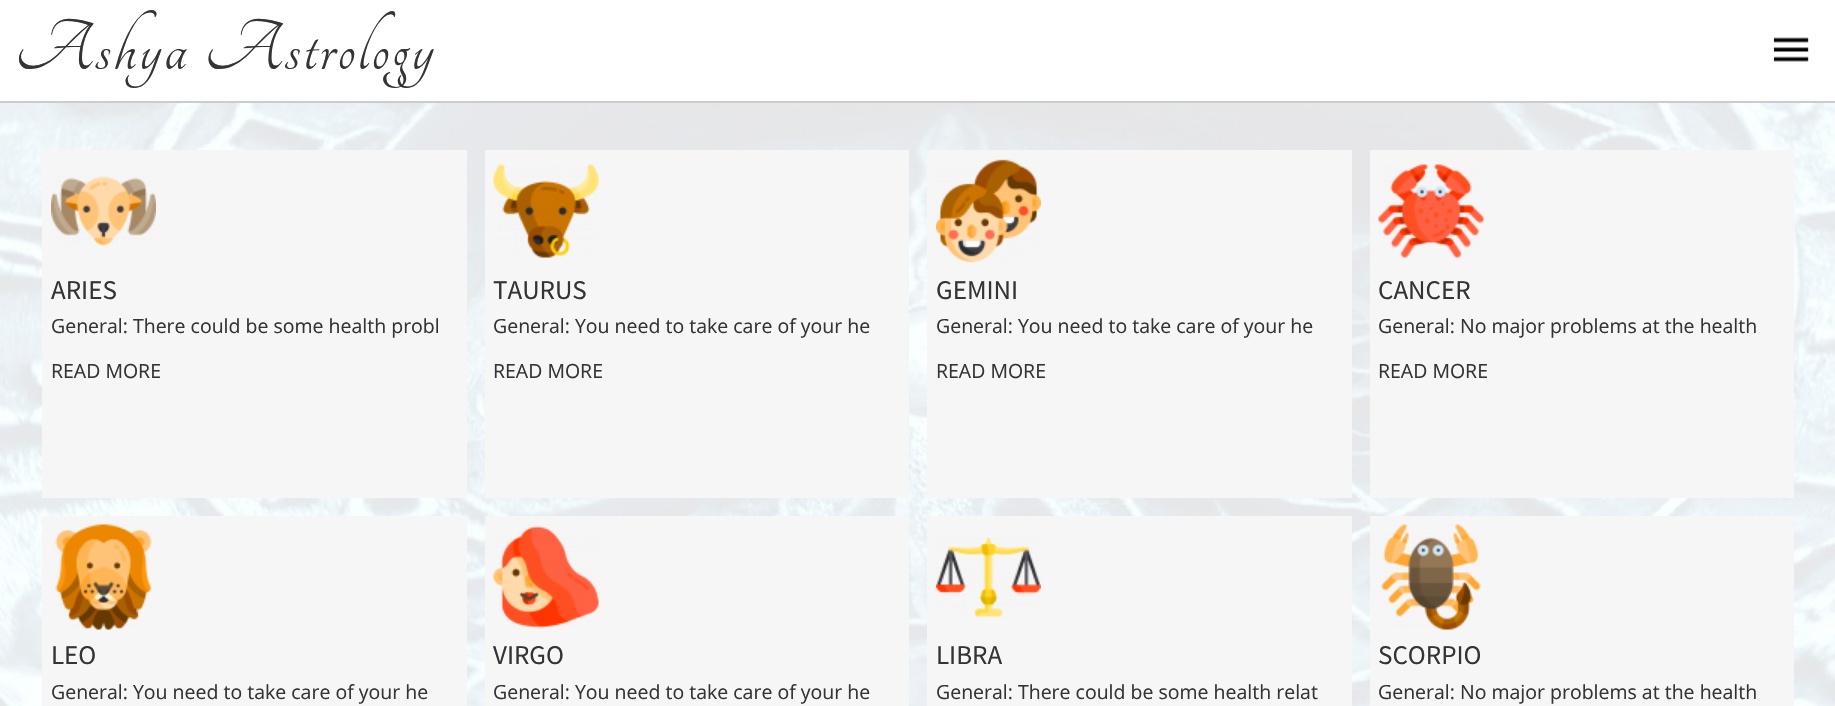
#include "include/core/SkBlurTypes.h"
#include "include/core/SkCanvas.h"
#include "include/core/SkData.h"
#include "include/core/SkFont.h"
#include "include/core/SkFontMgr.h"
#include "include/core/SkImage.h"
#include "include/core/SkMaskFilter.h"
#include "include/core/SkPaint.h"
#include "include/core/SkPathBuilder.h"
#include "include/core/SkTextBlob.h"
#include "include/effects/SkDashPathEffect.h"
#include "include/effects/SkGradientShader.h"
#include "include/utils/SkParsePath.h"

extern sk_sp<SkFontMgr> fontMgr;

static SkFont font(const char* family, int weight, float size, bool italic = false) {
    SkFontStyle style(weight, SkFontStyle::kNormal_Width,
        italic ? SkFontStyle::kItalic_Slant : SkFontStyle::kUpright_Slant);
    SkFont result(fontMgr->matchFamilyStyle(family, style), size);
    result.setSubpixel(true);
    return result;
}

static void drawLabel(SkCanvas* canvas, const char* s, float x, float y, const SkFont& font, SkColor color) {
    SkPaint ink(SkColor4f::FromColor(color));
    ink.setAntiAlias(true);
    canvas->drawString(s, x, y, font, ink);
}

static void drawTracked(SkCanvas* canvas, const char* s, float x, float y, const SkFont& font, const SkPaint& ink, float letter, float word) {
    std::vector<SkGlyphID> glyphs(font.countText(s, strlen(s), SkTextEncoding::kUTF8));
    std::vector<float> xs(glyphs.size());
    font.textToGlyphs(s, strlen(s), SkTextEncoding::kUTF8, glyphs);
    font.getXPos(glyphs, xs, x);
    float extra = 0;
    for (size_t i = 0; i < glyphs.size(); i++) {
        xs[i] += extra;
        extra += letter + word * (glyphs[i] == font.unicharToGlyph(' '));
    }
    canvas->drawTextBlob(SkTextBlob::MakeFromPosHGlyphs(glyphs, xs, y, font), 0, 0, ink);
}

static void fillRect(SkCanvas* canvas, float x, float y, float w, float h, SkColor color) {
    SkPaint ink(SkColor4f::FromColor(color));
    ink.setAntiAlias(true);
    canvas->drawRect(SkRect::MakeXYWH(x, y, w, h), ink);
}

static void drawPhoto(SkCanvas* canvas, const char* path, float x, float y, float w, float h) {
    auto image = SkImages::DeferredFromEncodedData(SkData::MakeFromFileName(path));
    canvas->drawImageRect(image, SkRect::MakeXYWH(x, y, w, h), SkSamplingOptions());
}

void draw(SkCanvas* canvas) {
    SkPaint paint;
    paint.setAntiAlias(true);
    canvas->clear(0xFFFFFFFF);
    drawPhoto(canvas, "assets/img1.png", 0, 103, 1835, 603);
    fillRect(canvas, 0, 101, 1835, 2, 0xFFCCCCCC);
    SkFont font1 = font("Tangerine", 400, 78);
    paint.setColor(0xFF343436);
    drawTracked(canvas, "Ashya Astrology", 15, 69, font1, paint, 3, 0);
    drawPhoto(canvas, "assets/img2.png", 1773, 37, 36, 25);
    fillRect(canvas, 42, 150, 425, 348, 0xFFF6F6F6);
    drawPhoto(canvas, "assets/img3.png", 51, 176, 105, 70);
    SkFont font2 = font("Source Sans Pro", 400, 27);
    drawLabel(canvas, "ARIES", 51, 299, font2, 0xFF343436);
    SkFont font3 = font("Open Sans", 400, 19.5f);
    drawLabel(canvas, "General: There could be some health probl", 51, 333, font3, 0xFF343436);
    drawLabel(canvas, "READ MORE", 51, 378, font3, 0xFF343436);
    fillRect(canvas, 485, 150, 424, 348, 0xFFF6F6F6);
    drawPhoto(canvas, "assets/img4.png", 493, 164, 106, 94);
    drawLabel(canvas, "TAURUS", 493, 299, font2, 0xFF343436);
    drawLabel(canvas, "General: You need to take care of your he", 493, 333, font3, 0xFF343436);
    drawLabel(canvas, "READ MORE", 493, 378, font3, 0xFF343436);
    fillRect(canvas, 927, 150, 425, 348, 0xFFF6F6F6);
    drawPhoto(canvas, "assets/img5.png", 936, 159, 105, 104);
    drawLabel(canvas, "GEMINI", 936, 299, font2, 0xFF343436);
    drawLabel(canvas, "General: You need to take care of your he", 936, 333, font3, 0xFF343436);
    drawLabel(canvas, "READ MORE", 936, 378, font3, 0xFF343436);
    fillRect(canvas, 1370, 150, 424, 348, 0xFFF6F6F6);
    drawPhoto(canvas, "assets/img6.png", 1378, 164, 106, 94);
    drawLabel(canvas, "CANCER", 1378, 299, font2, 0xFF343436);
    drawLabel(canvas, "General: No major problems at the health", 1378, 333, font3, 0xFF343436);
    drawLabel(canvas, "READ MORE", 1378, 378, font3, 0xFF343436);
    fillRect(canvas, 42, 516, 425, 190, 0xFFF6F6F6);
    drawPhoto(canvas, "assets/img7.png", 55, 524, 97, 106);
    drawLabel(canvas, "LEO", 51, 664, font2, 0xFF343436);
    drawLabel(canvas, "General: You need to take care of your he", 51, 699, font3, 0xFF343436);
    fillRect(canvas, 485, 516, 424, 190, 0xFFF6F6F6);
    drawPhoto(canvas, "assets/img8.png", 493, 525, 106, 104);
    drawLabel(canvas, "VIRGO", 493, 664, font2, 0xFF343436);
    drawLabel(canvas, "General: You need to take care of your he", 493, 699, font3, 0xFF343436);
    fillRect(canvas, 927, 516, 425, 190, 0xFFF6F6F6);
    drawPhoto(canvas, "assets/img9.png", 936, 536, 105, 82);
    drawLabel(canvas, "LIBRA", 936, 664, font2, 0xFF343436);
    drawLabel(canvas, "General: There could be some health relat", 936, 699, font3, 0xFF343436);
    fillRect(canvas, 1370, 516, 424, 190, 0xFFF6F6F6);
    drawPhoto(canvas, "assets/img10.png", 1381, 524, 100, 106);
    drawLabel(canvas, "SCORPIO", 1378, 664, font2, 0xFF343436);
    drawLabel(canvas, "General: No major problems at the health", 1378, 699, font3, 0xFF343436);
}
